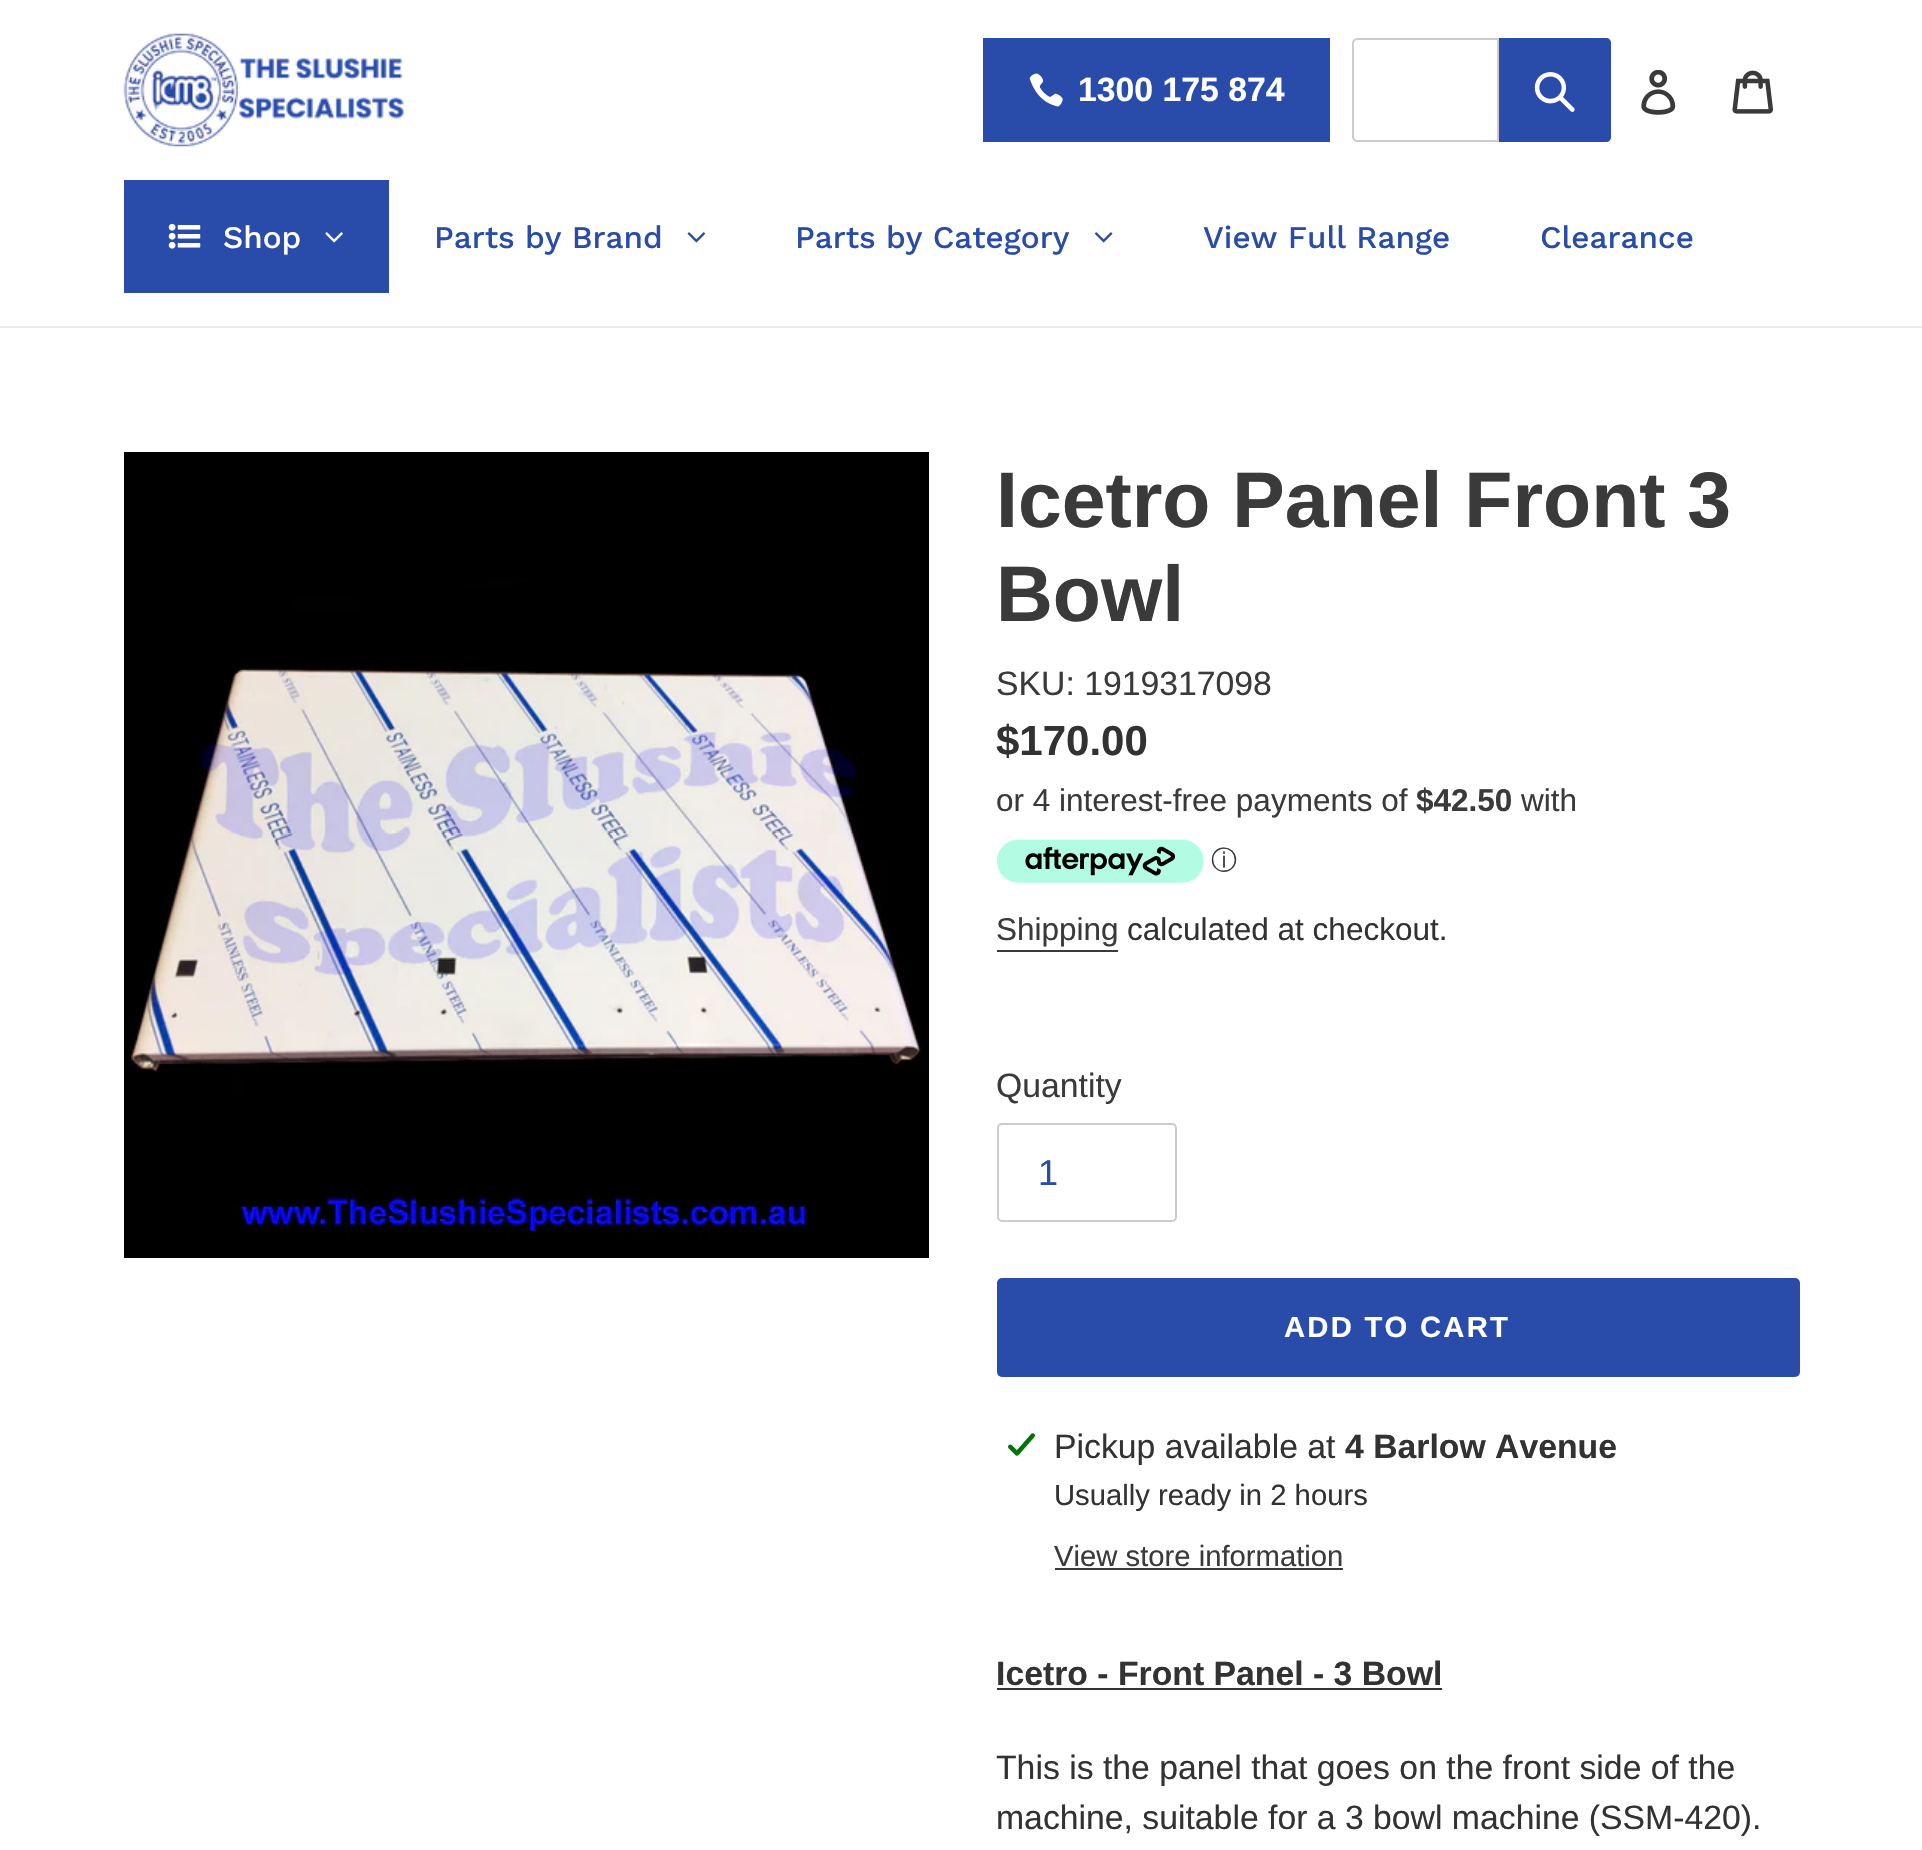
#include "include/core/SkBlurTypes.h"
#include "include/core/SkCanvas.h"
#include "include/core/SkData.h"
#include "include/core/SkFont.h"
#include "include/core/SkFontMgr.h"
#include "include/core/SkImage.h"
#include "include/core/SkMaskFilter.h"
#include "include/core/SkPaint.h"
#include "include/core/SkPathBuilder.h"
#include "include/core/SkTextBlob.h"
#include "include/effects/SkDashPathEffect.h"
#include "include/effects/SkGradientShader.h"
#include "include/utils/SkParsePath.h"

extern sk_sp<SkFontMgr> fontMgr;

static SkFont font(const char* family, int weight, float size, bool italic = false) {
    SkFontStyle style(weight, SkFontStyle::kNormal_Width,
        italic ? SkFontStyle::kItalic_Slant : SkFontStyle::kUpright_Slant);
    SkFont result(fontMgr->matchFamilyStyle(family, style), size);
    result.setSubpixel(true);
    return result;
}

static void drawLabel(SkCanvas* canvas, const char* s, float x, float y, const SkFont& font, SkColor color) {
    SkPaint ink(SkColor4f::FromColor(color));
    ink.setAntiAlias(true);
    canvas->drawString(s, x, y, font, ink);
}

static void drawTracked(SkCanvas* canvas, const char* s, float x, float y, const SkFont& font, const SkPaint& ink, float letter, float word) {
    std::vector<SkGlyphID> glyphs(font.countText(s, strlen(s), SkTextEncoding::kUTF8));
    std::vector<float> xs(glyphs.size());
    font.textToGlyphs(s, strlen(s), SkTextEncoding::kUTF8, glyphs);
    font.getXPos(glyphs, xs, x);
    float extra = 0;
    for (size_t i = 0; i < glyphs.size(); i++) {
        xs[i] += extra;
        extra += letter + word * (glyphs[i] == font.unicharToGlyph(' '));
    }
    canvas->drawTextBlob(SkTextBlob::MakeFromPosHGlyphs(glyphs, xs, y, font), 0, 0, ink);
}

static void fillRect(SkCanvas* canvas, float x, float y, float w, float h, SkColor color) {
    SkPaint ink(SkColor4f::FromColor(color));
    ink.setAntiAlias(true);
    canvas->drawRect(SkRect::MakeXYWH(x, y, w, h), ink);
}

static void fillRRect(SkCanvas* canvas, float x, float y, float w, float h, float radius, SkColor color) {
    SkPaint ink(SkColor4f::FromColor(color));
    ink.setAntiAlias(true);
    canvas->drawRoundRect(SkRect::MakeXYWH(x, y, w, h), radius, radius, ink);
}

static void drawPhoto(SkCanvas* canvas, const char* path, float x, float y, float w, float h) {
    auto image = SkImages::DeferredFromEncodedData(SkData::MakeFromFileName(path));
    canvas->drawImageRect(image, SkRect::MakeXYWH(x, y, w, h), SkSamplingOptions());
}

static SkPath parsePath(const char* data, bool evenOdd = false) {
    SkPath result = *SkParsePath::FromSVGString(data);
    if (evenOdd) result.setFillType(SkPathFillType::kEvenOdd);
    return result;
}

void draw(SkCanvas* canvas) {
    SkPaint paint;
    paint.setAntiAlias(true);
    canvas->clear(0xFFFFFFFF);
    fillRect(canvas, 0, 326, 1922, 2, 0xFFEBEBEB);
    drawPhoto(canvas, "assets/img1.png", 123, 33, 281, 114);
    fillRect(canvas, 983, 38, 347, 104, 0xFF294CAA);
    drawPhoto(canvas, "assets/img2.png", 1029, 73, 34, 34);
    SkFont font1 = font("Liberation Sans", 700, 33.75f);
    drawLabel(canvas, "1300 175 874", 1078, 101, font1, 0xFFFFFFFF);
    paint.setStroke(true);
    paint.setStrokeWidth(2);
    paint.setColor(0xFFCCCCCC);
    canvas->drawPath(parsePath("M1357 39H1498V141H1357C1355 141 1353 139 1353 137V43C1353 41 1355 39 1357 39Z"), paint);
    paint.setStroke(false);
    paint.setColor(0xFF294CAA);
    canvas->drawPath(parsePath("M1499 38H1606C1609 38 1611 40 1611 43V137C1611 140 1609 142 1606 142H1499Z"), paint);
    drawPhoto(canvas, "assets/img3.png", 1534, 72, 41, 40);
    drawPhoto(canvas, "assets/img4.png", 1641, 70, 35, 45);
    drawPhoto(canvas, "assets/img5.png", 1732, 70, 41, 44);
    fillRect(canvas, 124, 180, 265, 113, 0xFF294CAA);
    drawPhoto(canvas, "assets/img6.png", 168, 223, 33, 26);
    SkFont font2 = font("Work Sans", 500, 31.5f);
    drawLabel(canvas, "Shop", 223, 248, font2, 0xFFFFFFFF);
    drawPhoto(canvas, "assets/img7.png", 325, 232, 18, 11);
    drawLabel(canvas, "Parts by Brand", 434, 248, font2, 0xFF294CAA);
    drawPhoto(canvas, "assets/img8.png", 687, 232, 19, 11);
    drawLabel(canvas, "Parts by Category", 795, 248, font2, 0xFF294CAA);
    drawPhoto(canvas, "assets/img9.png", 1094, 232, 19, 11);
    drawLabel(canvas, "View Full Range", 1203, 248, font2, 0xFF294CAA);
    drawLabel(canvas, "Clearance", 1540, 248, font2, 0xFF294CAA);
    drawPhoto(canvas, "assets/img10.png", 124, 452, 805, 806);
    SkFont font3 = font("Liberation Sans", 700, 78.75f);
    drawLabel(canvas, "Icetro Panel Front 3", 996, 527, font3, 0xFF3A3A3A);
    drawLabel(canvas, "Bowl", 996, 621, font3, 0xFF3A3A3A);
    SkFont font4 = font("Liberation Sans", 400, 33.75f);
    drawLabel(canvas, "SKU: 1919317098", 996, 695, font4, 0xFF3A3A3A);
    SkFont font5 = font("Liberation Sans", 700, 42);
    drawLabel(canvas, "$170.00", 996, 755, font5, 0xFF333232);
    SkFont font6 = font("Liberation Sans", 400, 31.5f);
    drawLabel(canvas, "or 4 interest-free payments of", 996, 811, font6, 0xFF3A3A3A);
    SkFont font7 = font("Liberation Sans", 700, 31.5f);
    drawLabel(canvas, "$42.50", 1416, 811, font7, 0xFF3A3A3A);
    drawLabel(canvas, "with", 1521, 811, font6, 0xFF3A3A3A);
    drawPhoto(canvas, "assets/img11.png", 997, 839, 207, 44);
    SkFont font8 = font("WenQuanYi Zen Hei", 500, 26);
    drawLabel(canvas, "ⓘ", 1211, 869, font8, 0xFF3A3A3A);
    drawLabel(canvas, "Shipping", 996, 940, font6, 0xFF3A3A3A);
    fillRect(canvas, 997, 950, 121, 2, 0xFF3A3A3A);
    drawLabel(canvas, "calculated at checkout.", 1127, 940, font6, 0xFF333232);
    drawLabel(canvas, "Quantity", 996, 1097, font4, 0xFF3A3A3A);
    paint.setStroke(true);
    paint.setColor(0xFFCCCCCC);
    canvas->drawRoundRect(SkRect::MakeXYWH(998, 1124, 178, 97), 4, 4, paint);
    SkFont font9 = font("Liberation Sans", 400, 36);
    drawLabel(canvas, "1", 1038, 1185, font9, 0xFF294CAA);
    fillRRect(canvas, 997, 1278, 803, 99, 5, 0xFF294CAA);
    SkFont font10 = font("Liberation Sans", 700, 29.25f);
    paint.setStroke(false);
    paint.setColor(0xFFFFFFFF);
    drawTracked(canvas, "ADD TO CART", 1284, 1337, font10, paint, 2.25f, 0);
    drawPhoto(canvas, "assets/img12.png", 1008, 1433, 27, 23);
    drawLabel(canvas, "Pickup available at", 1054, 1458, font4, 0xFF333232);
    drawLabel(canvas, "4 Barlow Avenue", 1345, 1458, font1, 0xFF333232);
    SkFont font11 = font("Liberation Sans", 400, 29.25f);
    drawLabel(canvas, "Usually ready in 2 hours", 1054, 1505, font11, 0xFF333232);
    drawLabel(canvas, "View store information", 1054, 1566, font11, 0xFF3A3A3A);
    fillRect(canvas, 1055, 1568, 288, 2, 0xFF3A3A3A);
    drawLabel(canvas, "Icetro - Front Panel - 3 Bowl", 996, 1685, font1, 0xFF333232);
    fillRect(canvas, 997, 1688, 445, 2, 0xFF333232);
    drawLabel(canvas, "This is the panel that goes on the front side of the", 996, 1779, font4, 0xFF333232);
    drawLabel(canvas, "machine, suitable for a 3 bowl machine (SSM-420).", 996, 1829, font4, 0xFF333232);
}
